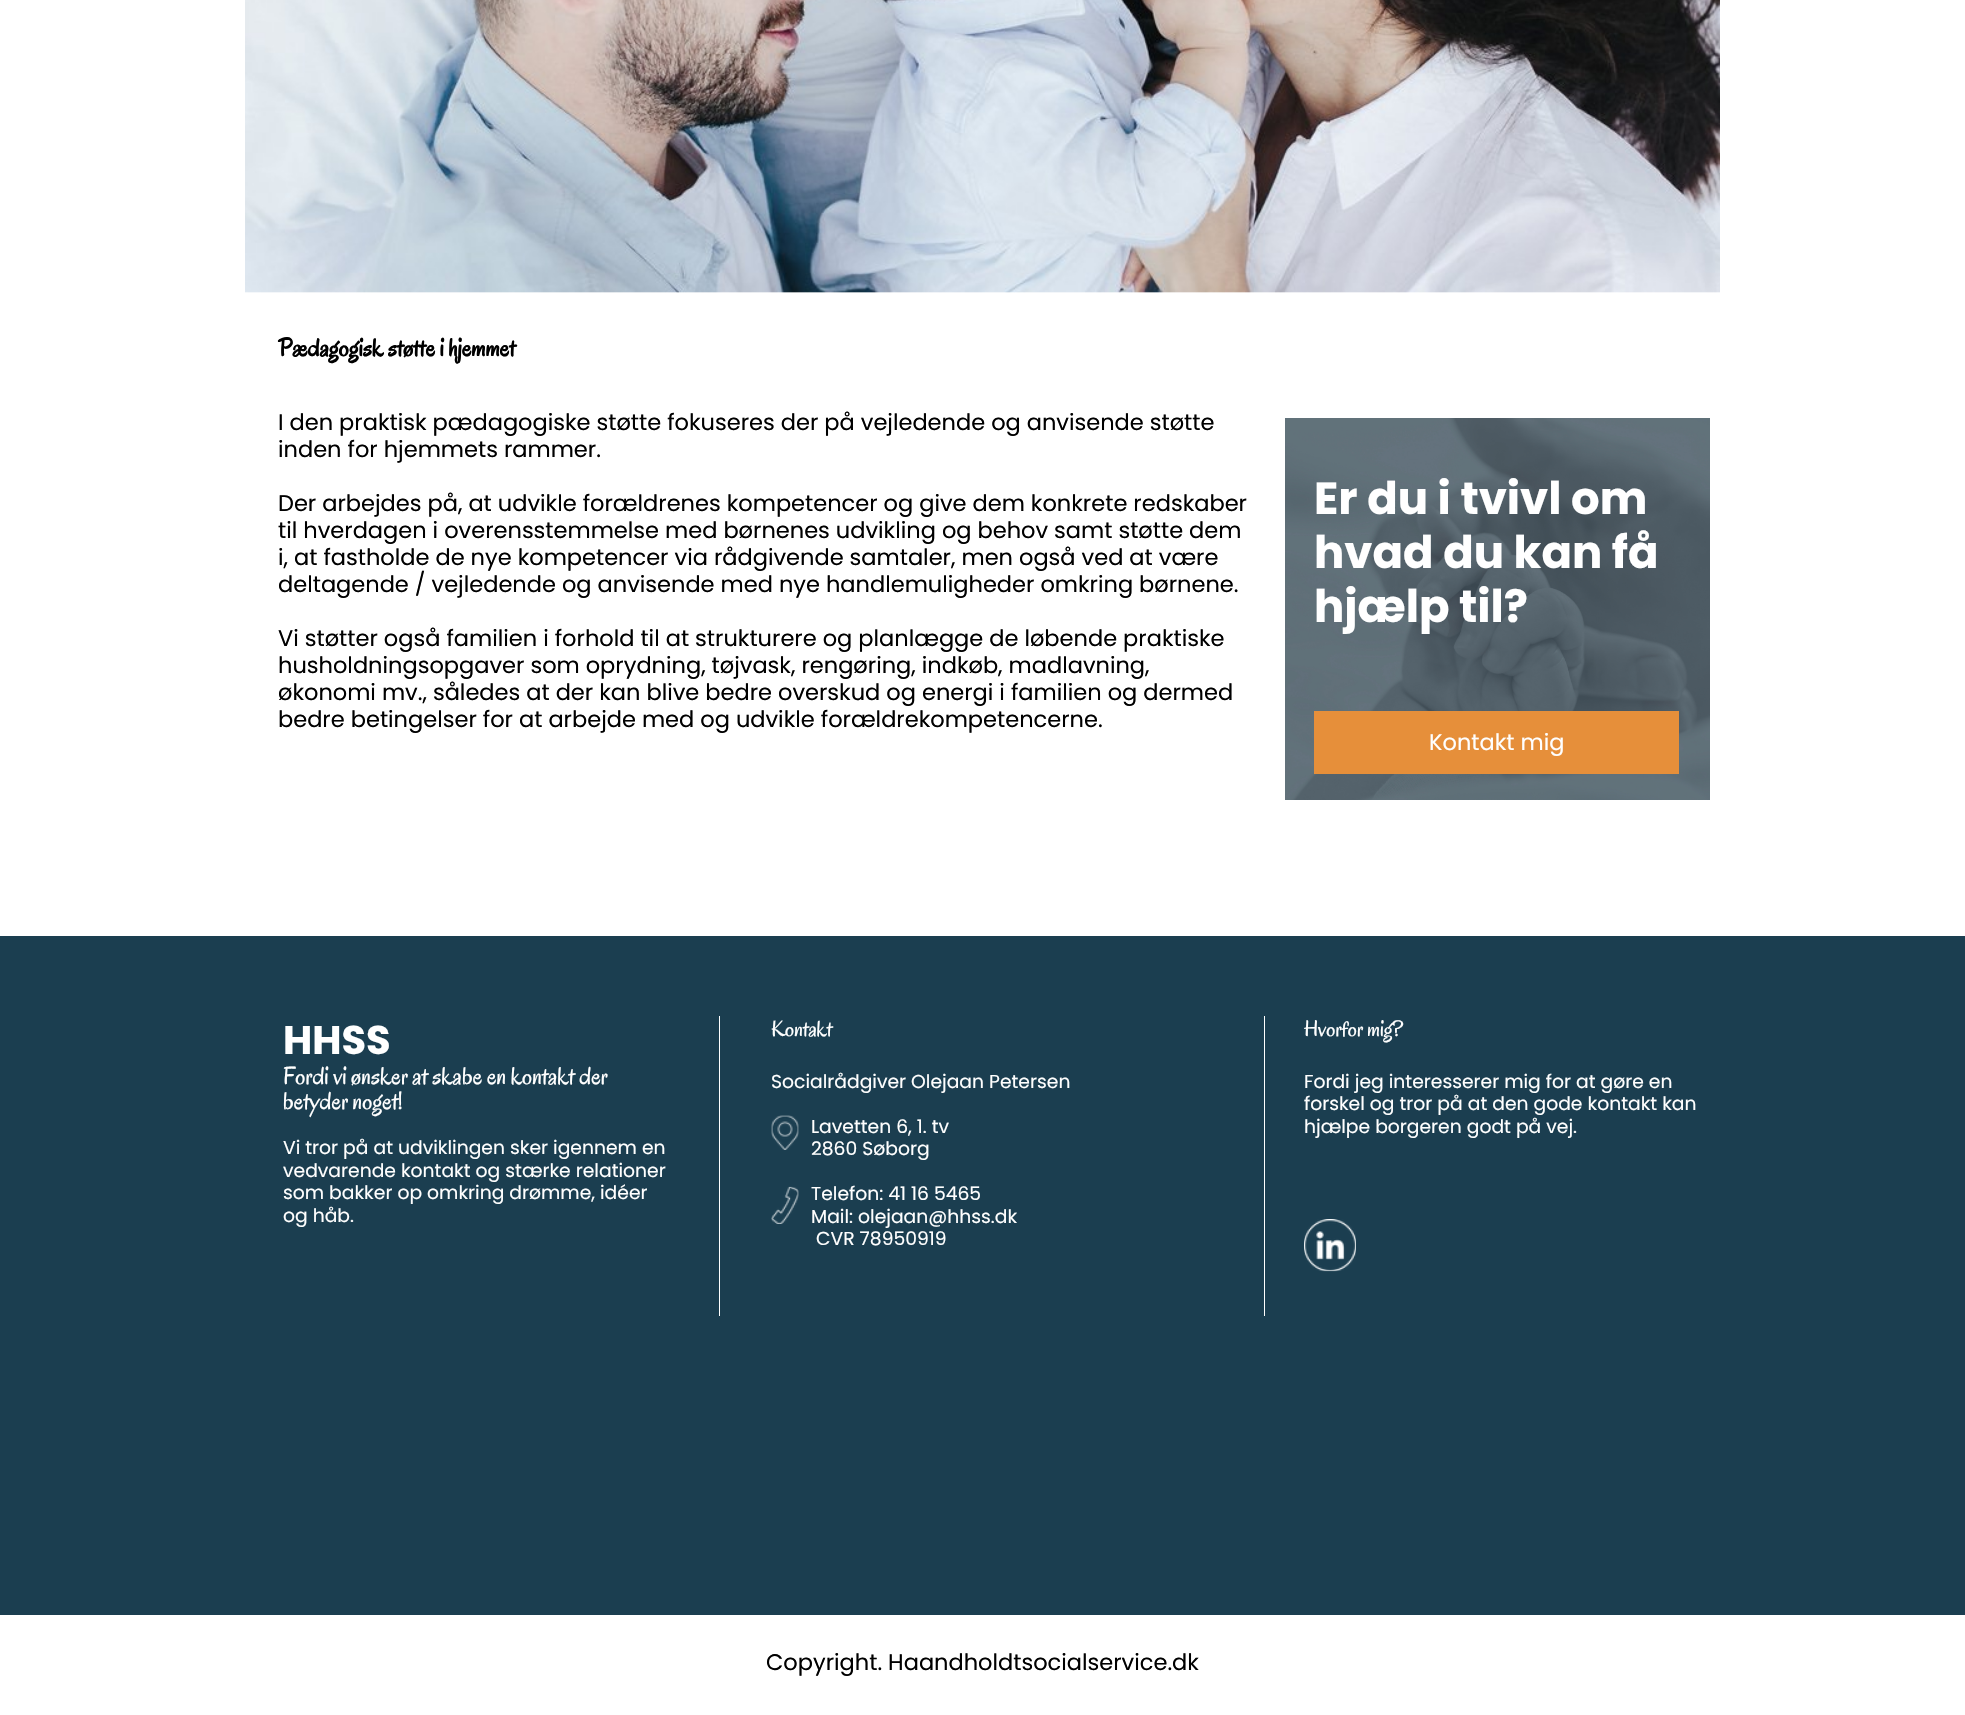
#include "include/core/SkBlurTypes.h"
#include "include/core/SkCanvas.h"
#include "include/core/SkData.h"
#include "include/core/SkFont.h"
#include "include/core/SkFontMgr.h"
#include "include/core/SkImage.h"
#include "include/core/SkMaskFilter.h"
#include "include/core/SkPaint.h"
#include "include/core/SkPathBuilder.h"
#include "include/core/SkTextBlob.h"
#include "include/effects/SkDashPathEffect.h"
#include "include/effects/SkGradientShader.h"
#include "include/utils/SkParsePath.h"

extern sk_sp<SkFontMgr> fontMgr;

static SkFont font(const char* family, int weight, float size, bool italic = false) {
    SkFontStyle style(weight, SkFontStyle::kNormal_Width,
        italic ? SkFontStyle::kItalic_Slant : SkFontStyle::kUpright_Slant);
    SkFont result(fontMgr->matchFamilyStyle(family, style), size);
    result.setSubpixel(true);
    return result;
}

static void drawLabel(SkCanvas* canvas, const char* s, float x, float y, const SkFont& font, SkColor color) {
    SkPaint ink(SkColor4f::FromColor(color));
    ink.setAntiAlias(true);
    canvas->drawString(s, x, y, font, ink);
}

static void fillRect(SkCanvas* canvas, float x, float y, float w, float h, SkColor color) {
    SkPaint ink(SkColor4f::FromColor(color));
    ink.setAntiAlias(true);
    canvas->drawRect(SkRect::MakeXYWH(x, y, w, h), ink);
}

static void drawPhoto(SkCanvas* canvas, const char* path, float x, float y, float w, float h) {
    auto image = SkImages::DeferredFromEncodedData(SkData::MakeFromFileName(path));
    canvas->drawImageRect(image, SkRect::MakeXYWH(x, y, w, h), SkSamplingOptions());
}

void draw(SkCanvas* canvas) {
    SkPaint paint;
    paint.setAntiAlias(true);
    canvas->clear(0xFFFFFFFF);
    drawPhoto(canvas, "assets/img1.png", 245, 0, 1475, 293);
    SkFont font1 = font("Oregano", 700, 25);
    drawLabel(canvas, "Pædagogisk støtte i hjemmet", 278, 356, font1, 0xFF000000);
    SkFont font2 = font("Poppins", 400, 22.5f);
    drawLabel(canvas, "I den praktisk pædagogiske støtte fokuseres der på vejledende og anvisende støtte", 278, 430, font2, 0xFF000000);
    drawLabel(canvas, "inden for hjemmets rammer.", 278, 457, font2, 0xFF000000);
    drawLabel(canvas, "Der arbejdes på, at udvikle forældrenes kompetencer og give dem konkrete redskaber", 278, 511, font2, 0xFF000000);
    drawLabel(canvas, "til hverdagen i overensstemmelse med børnenes udvikling og behov samt støtte dem", 278, 538, font2, 0xFF000000);
    drawLabel(canvas, "i, at fastholde de nye kompetencer via rådgivende samtaler, men også ved at være", 278, 565, font2, 0xFF000000);
    drawLabel(canvas, "deltagende / vejledende og anvisende med nye handlemuligheder omkring børnene.", 278, 592, font2, 0xFF000000);
    drawLabel(canvas, "Vi støtter også familien i forhold til at strukturere og planlægge de løbende praktiske", 278, 646, font2, 0xFF000000);
    drawLabel(canvas, "husholdningsopgaver som oprydning, tøjvask, rengøring, indkøb, madlavning,", 278, 673, font2, 0xFF000000);
    drawLabel(canvas, "økonomi mv., således at der kan blive bedre overskud og energi i familien og dermed", 278, 700, font2, 0xFF000000);
    drawLabel(canvas, "bedre betingelser for at arbejde med og udvikle forældrekompetencerne.", 278, 727, font2, 0xFF000000);
    drawPhoto(canvas, "assets/img2.png", 1285, 418, 425, 382);
    SkFont font3 = font("Poppins", 700, 45);
    drawLabel(canvas, "Er du i tvivl om", 1314, 514, font3, 0xFFFFFFFF);
    drawLabel(canvas, "hvad du kan få", 1314, 568, font3, 0xFFFFFFFF);
    drawLabel(canvas, "hjælp til?", 1314, 622, font3, 0xFFFFFFFF);
    fillRect(canvas, 1314, 711, 365, 63, 0xFFE68F3A);
    drawLabel(canvas, "Kontakt mig", 1429, 750, font2, 0xFFFFFFFF);
    fillRect(canvas, 0, 936, 1965, 679, 0xFF1B3E50);
    SkFont font4 = font("Poppins", 700, 40);
    drawLabel(canvas, "HHSS", 283, 1054, font4, 0xFFFFFFFF);
    SkFont font5 = font("Oregano", 400, 25);
    drawLabel(canvas, "Fordi vi ønsker at skabe en kontakt der", 283, 1084, font5, 0xFFFFFFFF);
    drawLabel(canvas, "betyder noget!", 283, 1109, font5, 0xFFFFFFFF);
    SkFont font6 = font("Poppins", 400, 18.75f);
    drawLabel(canvas, "Vi tror på at udviklingen sker igennem en", 283, 1154, font6, 0xFFFFFFFF);
    drawLabel(canvas, "vedvarende kontakt og stærke relationer", 283, 1177, font6, 0xFFFFFFFF);
    drawLabel(canvas, "som bakker op omkring drømme, idéer", 283, 1199, font6, 0xFFFFFFFF);
    drawLabel(canvas, "og håb.", 283, 1222, font6, 0xFFFFFFFF);
    fillRect(canvas, 719, 1016, 1, 300, 0xFFFFFFFF);
    SkFont font7 = font("Oregano", 400, 22.5f);
    drawLabel(canvas, "Kontakt", 771, 1036, font7, 0xFFFFFFFF);
    drawLabel(canvas, "Socialrådgiver Olejaan Petersen", 771, 1088, font6, 0xFFFFFFFF);
    drawPhoto(canvas, "assets/img3.png", 771, 1115, 28, 35);
    drawPhoto(canvas, "assets/img4.png", 771, 1186, 28, 38);
    drawLabel(canvas, "Lavetten 6, 1. tv", 811, 1133, font6, 0xFFFFFFFF);
    drawLabel(canvas, "2860 Søborg", 811, 1155, font6, 0xFFFFFFFF);
    drawLabel(canvas, "Telefon: 41 16 5465", 811, 1200, font6, 0xFFFFFFFF);
    drawLabel(canvas, "Mail: olejaan@hhss.dk", 811, 1223, font6, 0xFFFFFFFF);
    drawLabel(canvas, "CVR 78950919", 816, 1245, font6, 0xFFFFFFFF);
    fillRect(canvas, 1264, 1016, 1, 300, 0xFFFFFFFF);
    drawLabel(canvas, "Hvorfor mig?", 1304, 1036, font7, 0xFFFFFFFF);
    drawLabel(canvas, "Fordi jeg interesserer mig for at gøre en", 1304, 1088, font6, 0xFFFFFFFF);
    drawLabel(canvas, "forskel og tror på at den gode kontakt kan", 1304, 1110, font6, 0xFFFFFFFF);
    drawLabel(canvas, "hjælpe borgeren godt på vej.", 1304, 1133, font6, 0xFFFFFFFF);
    drawPhoto(canvas, "assets/img5.png", 1304, 1219, 52, 53);
    drawLabel(canvas, "Copyright. Haandholdtsocialservice.dk", 766, 1670, font2, 0xFF000000);
}
